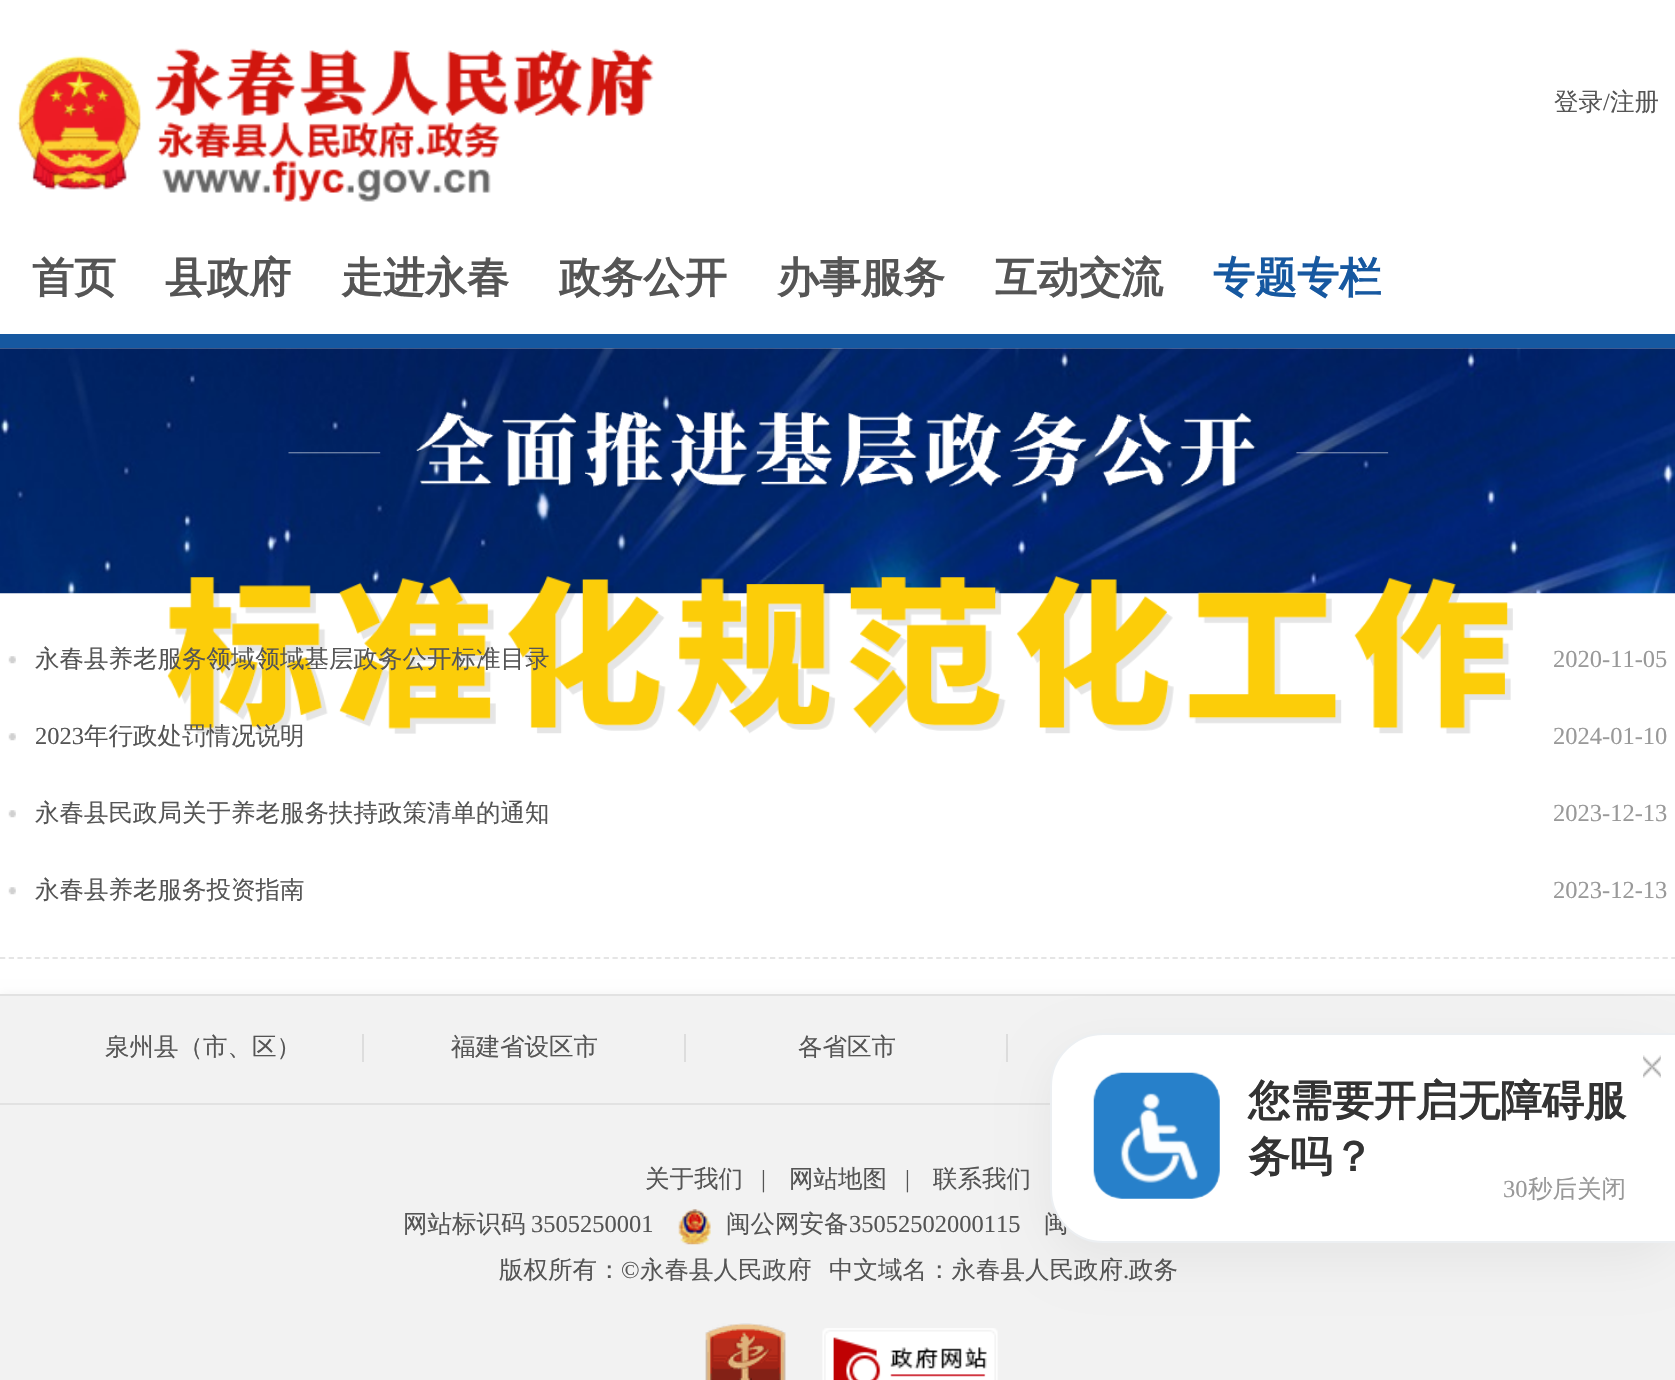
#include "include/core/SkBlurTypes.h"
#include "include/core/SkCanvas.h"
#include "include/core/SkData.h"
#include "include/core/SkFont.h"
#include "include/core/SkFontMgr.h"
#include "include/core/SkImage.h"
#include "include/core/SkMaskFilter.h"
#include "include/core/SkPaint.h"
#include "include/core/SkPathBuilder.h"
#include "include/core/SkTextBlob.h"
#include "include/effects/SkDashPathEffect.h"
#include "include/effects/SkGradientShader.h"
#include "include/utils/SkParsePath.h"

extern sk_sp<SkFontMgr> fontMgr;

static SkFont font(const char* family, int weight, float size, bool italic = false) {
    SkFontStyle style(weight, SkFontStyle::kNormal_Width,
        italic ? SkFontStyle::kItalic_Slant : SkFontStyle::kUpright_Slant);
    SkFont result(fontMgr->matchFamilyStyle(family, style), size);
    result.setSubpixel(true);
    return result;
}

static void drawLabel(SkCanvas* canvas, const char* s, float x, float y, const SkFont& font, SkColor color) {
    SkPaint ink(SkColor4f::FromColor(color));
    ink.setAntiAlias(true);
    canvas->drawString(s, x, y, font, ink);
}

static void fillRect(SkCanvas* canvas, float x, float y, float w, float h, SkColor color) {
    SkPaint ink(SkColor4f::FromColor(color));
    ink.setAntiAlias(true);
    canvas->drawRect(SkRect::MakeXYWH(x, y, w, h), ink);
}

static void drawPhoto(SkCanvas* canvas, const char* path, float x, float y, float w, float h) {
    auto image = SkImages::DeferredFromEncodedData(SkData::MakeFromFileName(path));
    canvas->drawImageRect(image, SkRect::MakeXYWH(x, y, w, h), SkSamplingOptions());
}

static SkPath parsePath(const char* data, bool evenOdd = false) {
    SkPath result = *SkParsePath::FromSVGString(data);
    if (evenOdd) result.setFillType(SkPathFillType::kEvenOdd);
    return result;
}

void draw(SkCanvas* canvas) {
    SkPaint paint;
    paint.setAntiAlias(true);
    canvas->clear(0xFFFFFFFF);
    fillRect(canvas, 0, 334, 1675, 14, 0xFF1658A0);
    drawPhoto(canvas, "assets/img1.png", 17, 48, 637, 154);
    SkFont font1 = font("WenQuanYi Zen Hei", 500, 24.5f);
    drawLabel(canvas, "登录", 1554, 110, font1, 0xFF555555);
    SkFont font2 = font("Liberation Serif", 400, 24.5f);
    drawLabel(canvas, "/", 1603, 110, font2, 0xFF555555);
    drawLabel(canvas, "注册", 1610, 110, font1, 0xFF555555);
    SkFont font3 = font("WenQuanYi Zen Hei", 700, 42);
    drawLabel(canvas, "首页", 32, 292, font3, 0xFF555555);
    drawLabel(canvas, "县政府", 165, 292, font3, 0xFF555555);
    drawLabel(canvas, "走进永春", 341, 292, font3, 0xFF555555);
    drawLabel(canvas, "政务公开", 559, 292, font3, 0xFF555555);
    drawLabel(canvas, "办事服务", 777, 292, font3, 0xFF555555);
    drawLabel(canvas, "互动交流", 995, 292, font3, 0xFF555555);
    drawLabel(canvas, "专题专栏", 1213, 292, font3, 0xFF1658A0);
    drawPhoto(canvas, "assets/img2.png", 0, 348, 1675, 246);
    drawPhoto(canvas, "assets/img3.png", 167, 410, 1346, 324);
    paint.setStroke(true);
    paint.setStrokeWidth(1.8f);
    paint.setColor(0xFFE5E5E5);
    paint.setPathEffect(SkDashPathEffect::Make({{5.25f, 3.5f}}, 0));
    canvas->drawPath(parsePath("M0 958H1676.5"), paint);
    paint.setPathEffect(nullptr);
    drawPhoto(canvas, "assets/img4.png", 8, 656, 8, 8);
    drawLabel(canvas, "永春县养老服务领域领域基层政务公开标准目录", 35, 667, font1, 0xFF555555);
    drawLabel(canvas, "2020-11-05", 1553, 667, font2, 0xFF999999);
    drawPhoto(canvas, "assets/img4.png", 8, 733, 8, 8);
    drawLabel(canvas, "2023", 35, 744, font2, 0xFF555555);
    drawLabel(canvas, "年行政处罚情况说明", 84, 744, font1, 0xFF555555);
    drawLabel(canvas, "2024-01-10", 1553, 744, font2, 0xFF999999);
    drawPhoto(canvas, "assets/img4.png", 8, 810, 8, 8);
    drawLabel(canvas, "永春县民政局关于养老服务扶持政策清单的通知", 35, 821, font1, 0xFF555555);
    drawLabel(canvas, "2023-12-13", 1553, 821, font2, 0xFF999999);
    drawPhoto(canvas, "assets/img4.png", 8, 887, 8, 8);
    drawLabel(canvas, "永春县养老服务投资指南", 35, 898, font1, 0xFF555555);
    drawLabel(canvas, "2023-12-13", 1553, 898, font2, 0xFF999999);
    paint.setStroke(false);
    paint.setColor(0x0D000000);
    paint.setMaskFilter(SkMaskFilter::MakeBlur(kNormal_SkBlurStyle, 5));
    canvas->drawRect(SkRect::MakeXYWH(0, 994, 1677, 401), paint);
    paint.setMaskFilter(nullptr);
    fillRect(canvas, 0, 996, 1675, 384, 0xFFF2F2F2);
    fillRect(canvas, 0, 994, 1675, 2, 0xFFE2E2E2);
    fillRect(canvas, 0, 1103, 1050, 2, 0xFFE2E2E2);
    drawLabel(canvas, "泉州县（市、区）", 105, 1055, font1, 0xFF555555);
    fillRect(canvas, 362, 1034, 2, 28, 0xFFDDDDDD);
    drawLabel(canvas, "福建省设区市", 451, 1055, font1, 0xFF555555);
    fillRect(canvas, 684, 1034, 2, 28, 0xFFDDDDDD);
    drawLabel(canvas, "各省区市", 798, 1055, font1, 0xFF555555);
    fillRect(canvas, 1006, 1034, 2, 28, 0xFFDDDDDD);
    drawLabel(canvas, "关于我们", 645, 1187, font1, 0xFF555555);
    drawLabel(canvas, "|", 761, 1187, font2, 0xFF555555);
    drawLabel(canvas, "网站地图", 789, 1187, font1, 0xFF555555);
    drawLabel(canvas, "|", 905, 1187, font2, 0xFF555555);
    drawLabel(canvas, "联系我们", 933, 1187, font1, 0xFF555555);
    drawLabel(canvas, "网站标识码", 403, 1232, font1, 0xFF555555);
    drawLabel(canvas, "3505250001", 531, 1232, font2, 0xFF555555);
    drawPhoto(canvas, "assets/img5.png", 678, 1209, 33, 36);
    drawLabel(canvas, "闽公网安备", 726, 1232, font1, 0xFF555555);
    drawLabel(canvas, "35052502000115", 849, 1232, font2, 0xFF555555);
    drawLabel(canvas, "闽", 1044, 1232, font1, 0xFF555555);
    drawLabel(canvas, "版权所有：", 499, 1278, font1, 0xFF555555);
    drawLabel(canvas, "©", 621, 1278, font2, 0xFF555555);
    drawLabel(canvas, "永春县人民政府", 640, 1278, font1, 0xFF555555);
    drawLabel(canvas, "中文域名：永春县人民政府", 829, 1278, font1, 0xFF555555);
    drawLabel(canvas, ".", 1123, 1278, font2, 0xFF555555);
    drawLabel(canvas, "政务", 1129, 1278, font1, 0xFF555555);
    drawPhoto(canvas, "assets/img6.png", 705, 1323, 81, 57);
    drawPhoto(canvas, "assets/img7.png", 822, 1328, 176, 52);
    paint.setColor(0x0D040404);
    paint.setMaskFilter(SkMaskFilter::MakeBlur(kNormal_SkBlurStyle, 23.5f));
    canvas->drawRoundRect(SkRect::MakeXYWH(1050, 1050, 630, 210), 53, 53, paint);
    paint.setMaskFilter(nullptr);
    paint.setColor(0xFFFFFFFF);
    canvas->drawPath(parsePath("M1103 1034H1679V1242H1103C1074.5 1242 1051 1218.5 1051 1190V1086C1051 1057.5 1074.5 1034 1103 1034Z"), paint);
    paint.setStroke(true);
    paint.setStrokeWidth(2);
    paint.setColor(0xFFECEFF2);
    canvas->drawPath(parsePath("M1103 1034H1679V1242H1103C1074.5 1242 1051 1218.5 1051 1190V1086C1051 1057.5 1074.5 1034 1103 1034Z"), paint);
    drawPhoto(canvas, "assets/img8.png", 1643, 1055, 18, 23);
    drawPhoto(canvas, "assets/img9.png", 1093, 1072, 127, 127);
    drawLabel(canvas, "您需要开启无障碍服", 1248, 1115, font3, 0xFF333333);
    drawLabel(canvas, "务吗？", 1248, 1171, font3, 0xFF333333);
    drawLabel(canvas, "30", 1503, 1197, font2, 0xFF999999);
    drawLabel(canvas, "秒后关闭", 1528, 1197, font1, 0xFF999999);
}
